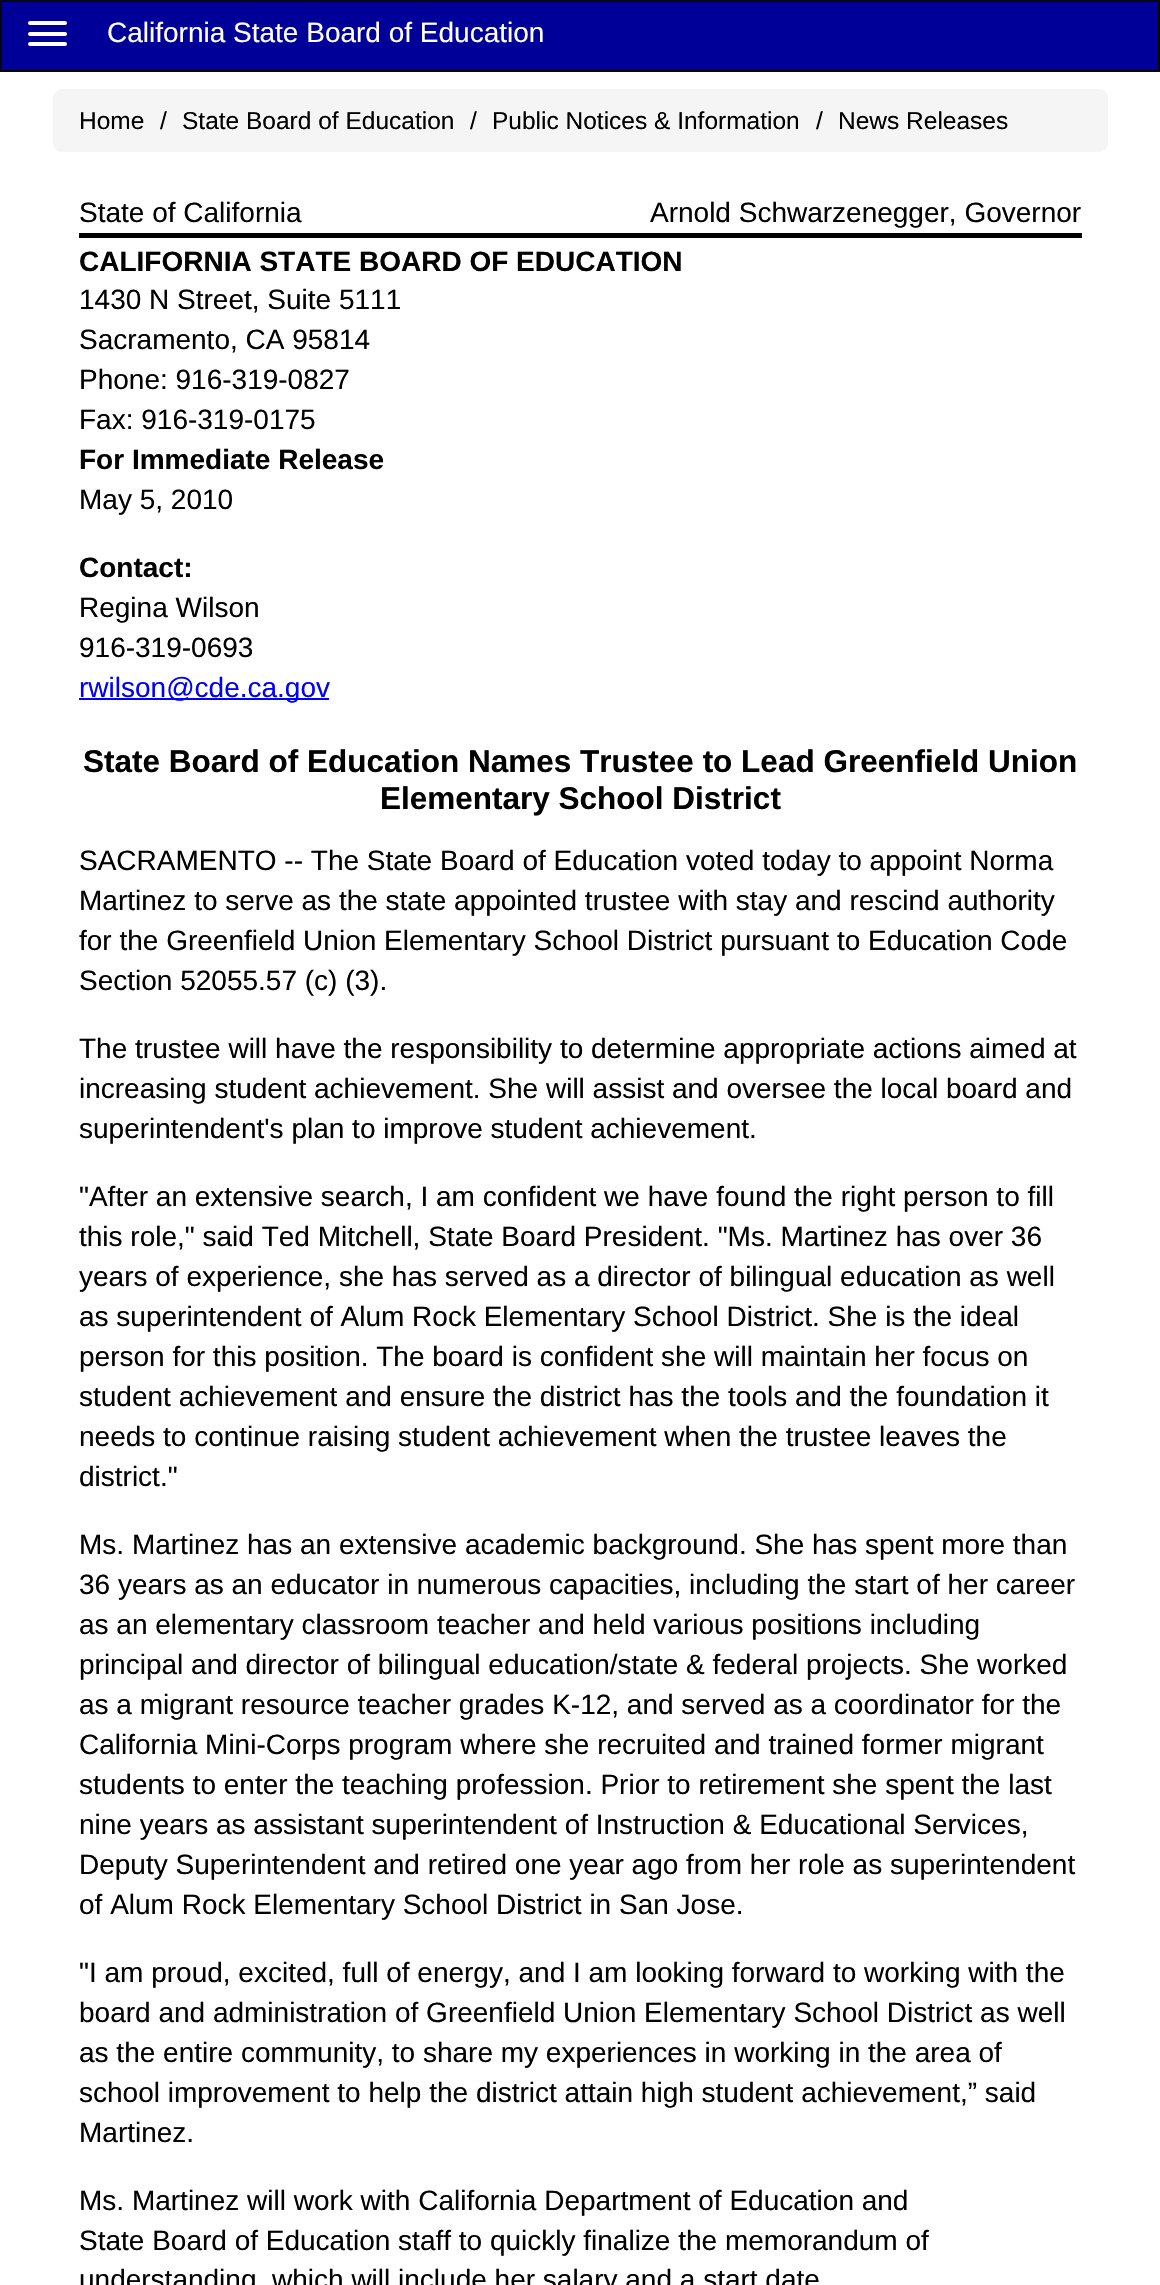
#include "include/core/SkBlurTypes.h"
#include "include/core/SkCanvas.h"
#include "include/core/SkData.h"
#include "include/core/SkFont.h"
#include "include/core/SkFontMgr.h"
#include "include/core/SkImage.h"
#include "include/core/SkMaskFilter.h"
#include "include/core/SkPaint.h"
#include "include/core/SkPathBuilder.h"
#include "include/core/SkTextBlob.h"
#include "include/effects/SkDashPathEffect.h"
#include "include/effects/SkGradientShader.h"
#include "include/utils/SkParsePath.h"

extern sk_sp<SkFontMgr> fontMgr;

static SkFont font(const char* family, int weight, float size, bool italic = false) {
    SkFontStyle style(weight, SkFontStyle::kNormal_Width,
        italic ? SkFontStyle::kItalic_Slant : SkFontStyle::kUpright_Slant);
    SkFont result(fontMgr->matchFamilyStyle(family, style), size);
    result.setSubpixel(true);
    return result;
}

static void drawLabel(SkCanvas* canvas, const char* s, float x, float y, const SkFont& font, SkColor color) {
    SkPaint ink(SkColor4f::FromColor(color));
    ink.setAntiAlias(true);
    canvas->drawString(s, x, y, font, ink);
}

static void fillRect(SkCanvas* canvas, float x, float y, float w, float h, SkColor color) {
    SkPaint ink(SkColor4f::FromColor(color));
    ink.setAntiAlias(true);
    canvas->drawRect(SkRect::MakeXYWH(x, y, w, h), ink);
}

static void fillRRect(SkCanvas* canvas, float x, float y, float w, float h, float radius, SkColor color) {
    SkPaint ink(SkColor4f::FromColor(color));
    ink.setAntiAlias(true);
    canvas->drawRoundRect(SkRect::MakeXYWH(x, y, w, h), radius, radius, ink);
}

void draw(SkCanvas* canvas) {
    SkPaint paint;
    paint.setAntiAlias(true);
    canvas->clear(0xFFFFFFFF);
    paint.setColor(0xFF000099);
    canvas->drawRect(SkRect::MakeXYWH(1, 1, 1158, 70), paint);
    paint.setStroke(true);
    paint.setStrokeWidth(2);
    paint.setColor(0xFF080808);
    canvas->drawRect(SkRect::MakeXYWH(1, 1, 1158, 70), paint);
    fillRRect(canvas, 28, 21, 39, 4, 2, 0xFFFFFFFF);
    fillRRect(canvas, 28, 32, 39, 4, 2, 0xFFFFFFFF);
    fillRRect(canvas, 28, 42, 39, 4, 2, 0xFFFFFFFF);
    SkFont font1 = font("Liberation Sans", 400, 28);
    drawLabel(canvas, "California State Board of Education", 107, 42, font1, 0xFFFFFFFF);
    fillRRect(canvas, 53, 89, 1055, 63, 9, 0xFFF5F5F5);
    SkFont font2 = font("Liberation Sans", 400, 24.5f);
    drawLabel(canvas, "Home", 79, 129, font2, 0xFF000000);
    drawLabel(canvas, "/", 160, 129, font2, 0xFF000000);
    drawLabel(canvas, "State Board of Education", 182, 129, font2, 0xFF000000);
    drawLabel(canvas, "/", 470, 129, font2, 0xFF000000);
    drawLabel(canvas, "Public Notices & Information", 492, 129, font2, 0xFF000000);
    drawLabel(canvas, "/", 816, 129, font2, 0xFF000000);
    drawLabel(canvas, "News Releases", 838, 129, font2, 0xFF000000);
    fillRect(canvas, 79, 233, 1003, 5, 0xFF000000);
    drawLabel(canvas, "State of California", 79, 222, font1, 0xFF000000);
    drawLabel(canvas, "Arnold Schwarzenegger, Governor", 650, 222, font1, 0xFF000000);
    SkFont font3 = font("Liberation Sans", 700, 28);
    drawLabel(canvas, "CALIFORNIA STATE BOARD OF EDUCATION", 79, 271, font3, 0xFF000000);
    drawLabel(canvas, "1430 N Street, Suite 5111", 79, 309, font1, 0xFF000000);
    drawLabel(canvas, "Sacramento, CA 95814", 79, 349, font1, 0xFF000000);
    drawLabel(canvas, "Phone: 916-319-0827", 79, 389, font1, 0xFF000000);
    drawLabel(canvas, "Fax: 916-319-0175", 79, 429, font1, 0xFF000000);
    drawLabel(canvas, "For Immediate Release", 79, 469, font3, 0xFF000000);
    drawLabel(canvas, "May 5, 2010", 79, 509, font1, 0xFF000000);
    drawLabel(canvas, "Contact:", 79, 577, font3, 0xFF000000);
    drawLabel(canvas, "Regina Wilson", 79, 617, font1, 0xFF000000);
    drawLabel(canvas, "916-319-0693", 79, 657, font1, 0xFF000000);
    fillRect(canvas, 79, 698, 250, 2, 0xFF0000FF);
    drawLabel(canvas, "rwilson@cde.ca.gov", 79, 697, font1, 0xFF0000FF);
    SkFont font4 = font("Liberation Sans", 700, 31.5f);
    drawLabel(canvas, "State Board of Education Names Trustee to Lead Greenfield Union", 83, 772, font4, 0xFF000000);
    drawLabel(canvas, "Elementary School District", 380, 809, font4, 0xFF000000);
    drawLabel(canvas, "SACRAMENTO -- The State Board of Education voted today to appoint Norma", 79, 870, font1, 0xFF000000);
    drawLabel(canvas, "Martinez to serve as the state appointed trustee with stay and rescind authority", 79, 910, font1, 0xFF000000);
    drawLabel(canvas, "for the Greenfield Union Elementary School District pursuant to Education Code", 79, 950, font1, 0xFF000000);
    drawLabel(canvas, "Section 52055.57 (c) (3).", 79, 990, font1, 0xFF000000);
    drawLabel(canvas, "The trustee will have the responsibility to determine appropriate actions aimed at", 79, 1058, font1, 0xFF000000);
    drawLabel(canvas, "increasing student achievement. She will assist and oversee the local board and", 79, 1098, font1, 0xFF000000);
    drawLabel(canvas, "superintendent's plan to improve student achievement.", 79, 1138, font1, 0xFF000000);
    drawLabel(canvas, "\"After an extensive search, I am confident we have found the right person to fill", 79, 1206, font1, 0xFF000000);
    drawLabel(canvas, "this role,\" said Ted Mitchell, State Board President. \"Ms. Martinez has over 36", 79, 1246, font1, 0xFF000000);
    drawLabel(canvas, "years of experience, she has served as a director of bilingual education as well", 79, 1286, font1, 0xFF000000);
    drawLabel(canvas, "as superintendent of Alum Rock Elementary School District. She is the ideal", 79, 1326, font1, 0xFF000000);
    drawLabel(canvas, "person for this position. The board is confident she will maintain her focus on", 79, 1366, font1, 0xFF000000);
    drawLabel(canvas, "student achievement and ensure the district has the tools and the foundation it", 79, 1406, font1, 0xFF000000);
    drawLabel(canvas, "needs to continue raising student achievement when the trustee leaves the", 79, 1446, font1, 0xFF000000);
    drawLabel(canvas, "district.\"", 79, 1486, font1, 0xFF000000);
    drawLabel(canvas, "Ms. Martinez has an extensive academic background. She has spent more than", 79, 1554, font1, 0xFF000000);
    drawLabel(canvas, "36 years as an educator in numerous capacities, including the start of her career", 79, 1594, font1, 0xFF000000);
    drawLabel(canvas, "as an elementary classroom teacher and held various positions including", 79, 1634, font1, 0xFF000000);
    drawLabel(canvas, "principal and director of bilingual education/state & federal projects. She worked", 79, 1674, font1, 0xFF000000);
    drawLabel(canvas, "as a migrant resource teacher grades K-12, and served as a coordinator for the", 79, 1714, font1, 0xFF000000);
    drawLabel(canvas, "California Mini-Corps program where she recruited and trained former migrant", 79, 1754, font1, 0xFF000000);
    drawLabel(canvas, "students to enter the teaching profession. Prior to retirement she spent the last", 79, 1794, font1, 0xFF000000);
    drawLabel(canvas, "nine years as assistant superintendent of Instruction & Educational Services,", 79, 1834, font1, 0xFF000000);
    drawLabel(canvas, "Deputy Superintendent and retired one year ago from her role as superintendent", 79, 1874, font1, 0xFF000000);
    drawLabel(canvas, "of Alum Rock Elementary School District in San Jose.", 79, 1914, font1, 0xFF000000);
    drawLabel(canvas, "\"I am proud, excited, full of energy, and I am looking forward to working with the", 79, 1982, font1, 0xFF000000);
    drawLabel(canvas, "board and administration of Greenfield Union Elementary School District as well", 79, 2022, font1, 0xFF000000);
    drawLabel(canvas, "as the entire community, to share my experiences in working in the area of", 79, 2062, font1, 0xFF000000);
    drawLabel(canvas, "school improvement to help the district attain high student achievement,” said", 79, 2102, font1, 0xFF000000);
    drawLabel(canvas, "Martinez.", 79, 2142, font1, 0xFF000000);
    drawLabel(canvas, "Ms. Martinez will work with California Department of Education and", 79, 2210, font1, 0xFF000000);
    drawLabel(canvas, "State Board of Education staff to quickly finalize the memorandum of", 79, 2250, font1, 0xFF000000);
    drawLabel(canvas, "understanding, which will include her salary and a start date", 79, 2289, font1, 0xFF000000);
}
